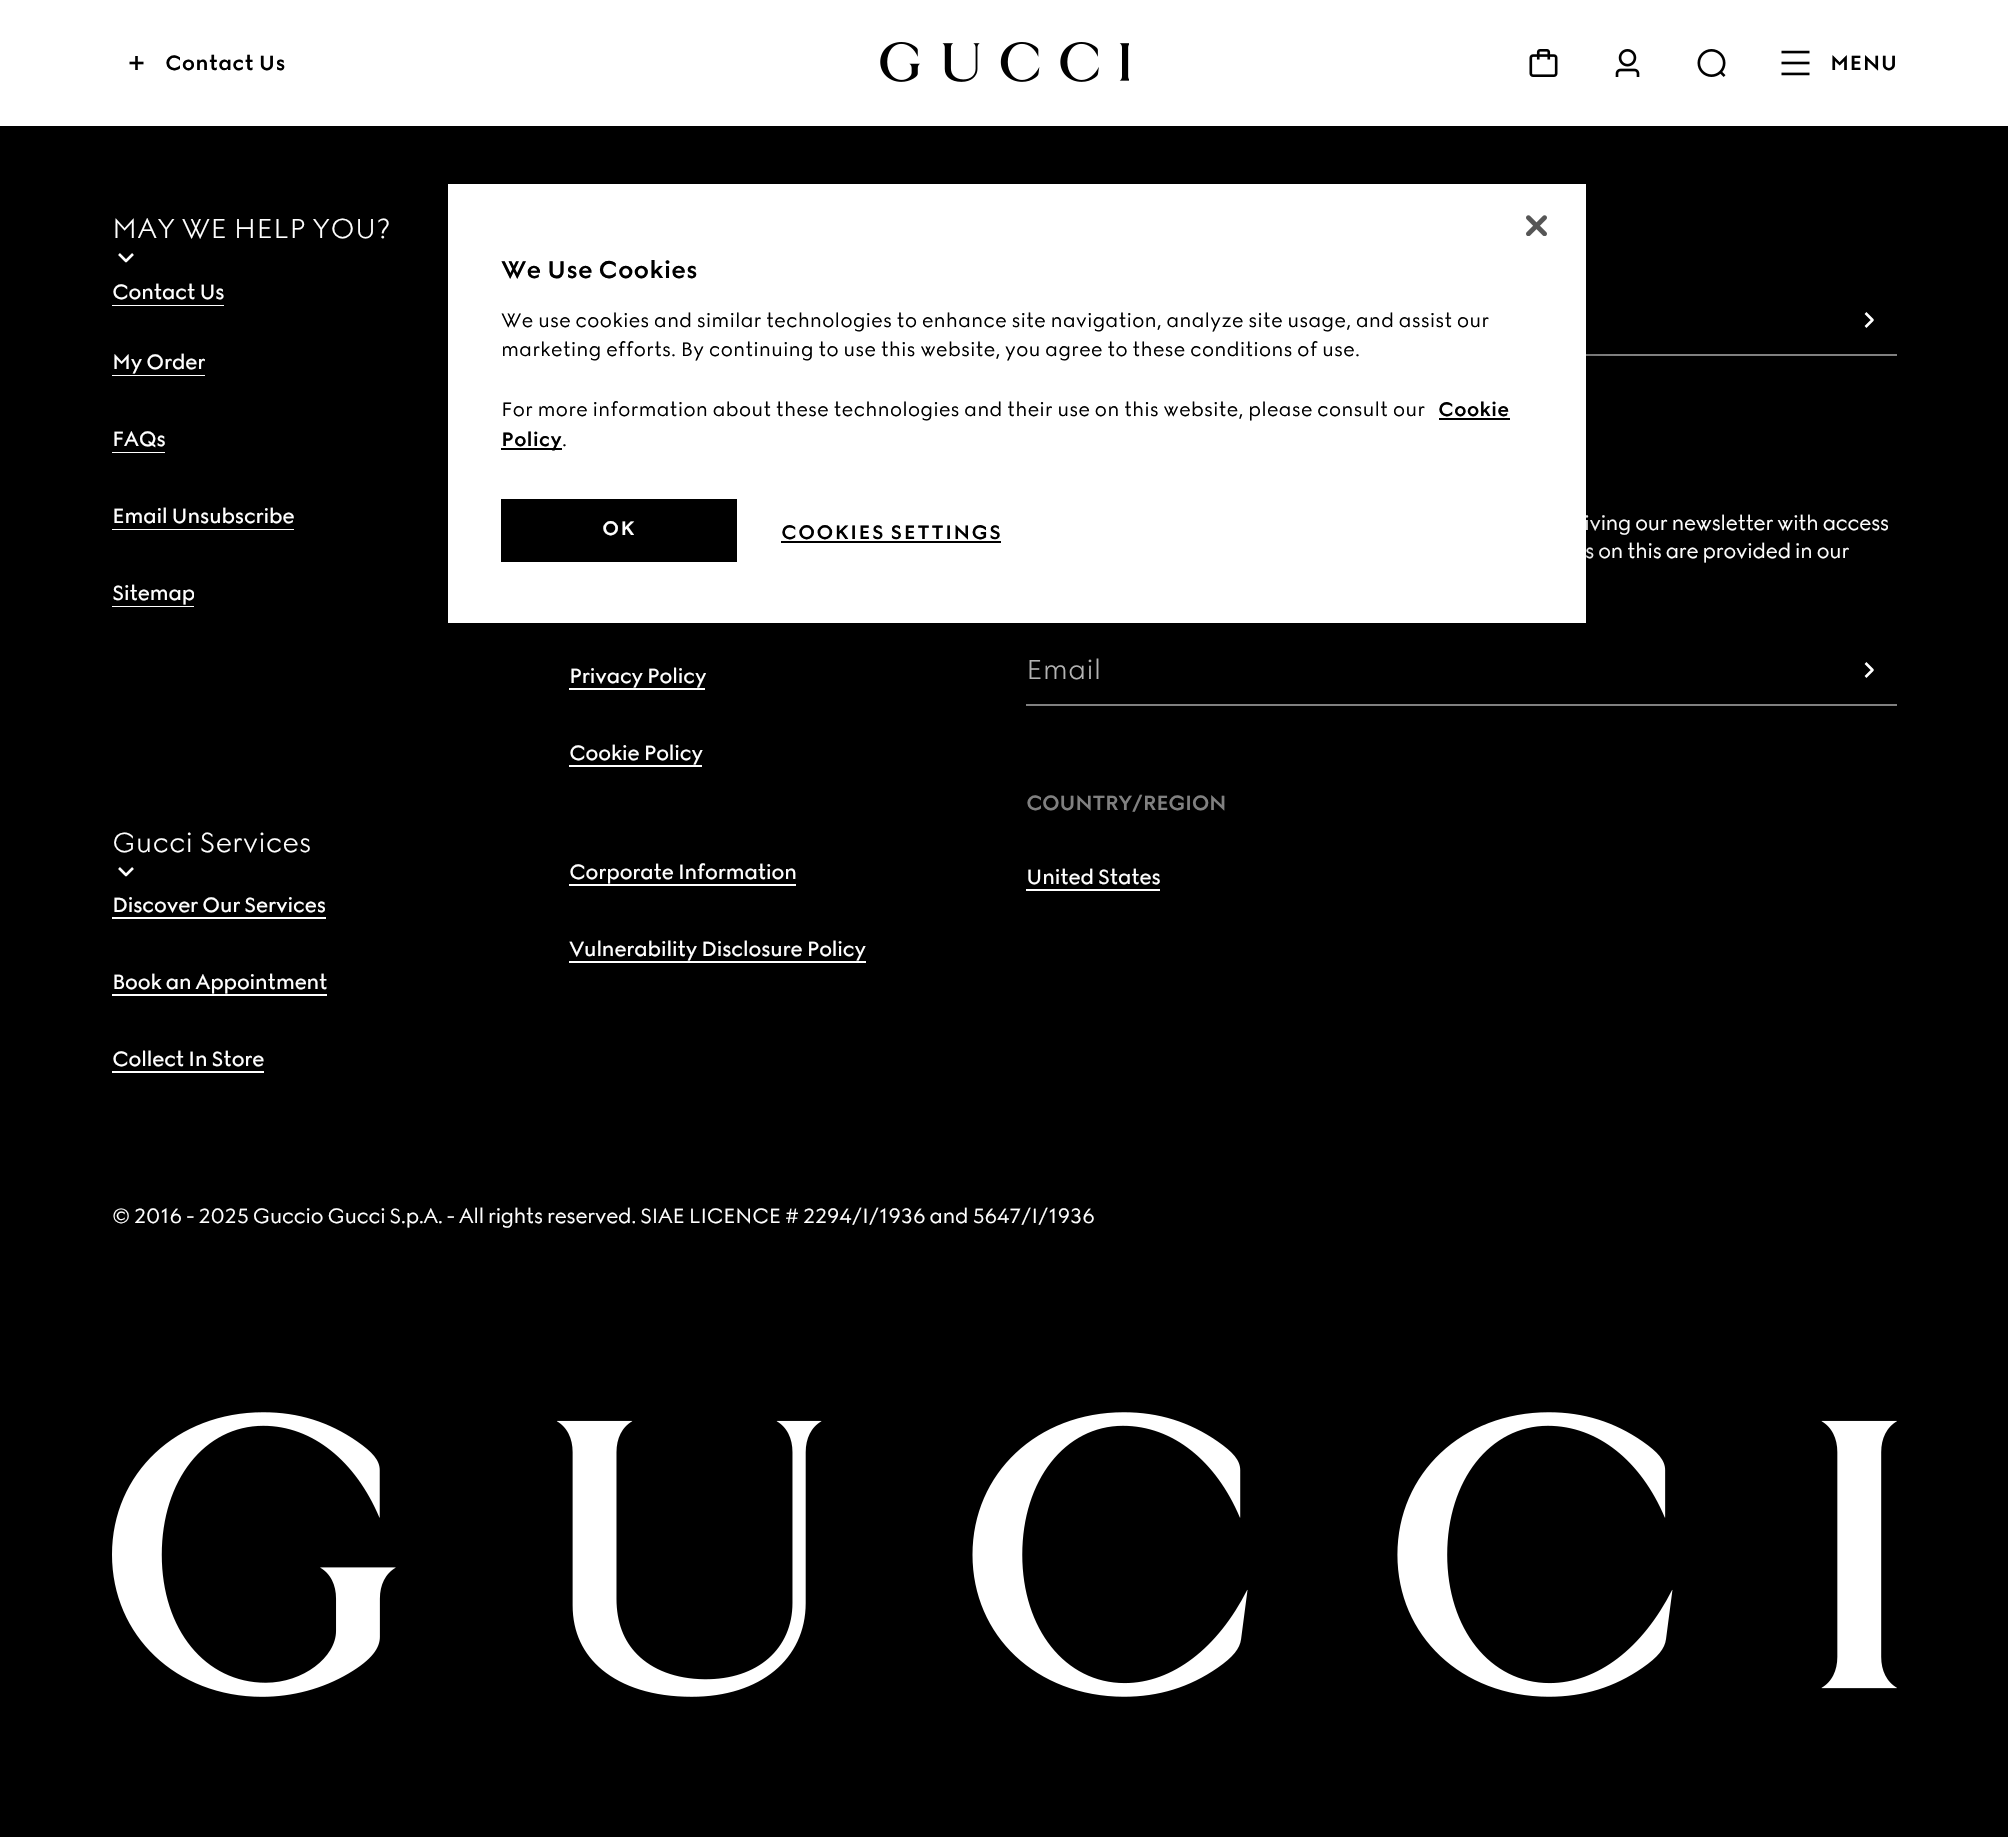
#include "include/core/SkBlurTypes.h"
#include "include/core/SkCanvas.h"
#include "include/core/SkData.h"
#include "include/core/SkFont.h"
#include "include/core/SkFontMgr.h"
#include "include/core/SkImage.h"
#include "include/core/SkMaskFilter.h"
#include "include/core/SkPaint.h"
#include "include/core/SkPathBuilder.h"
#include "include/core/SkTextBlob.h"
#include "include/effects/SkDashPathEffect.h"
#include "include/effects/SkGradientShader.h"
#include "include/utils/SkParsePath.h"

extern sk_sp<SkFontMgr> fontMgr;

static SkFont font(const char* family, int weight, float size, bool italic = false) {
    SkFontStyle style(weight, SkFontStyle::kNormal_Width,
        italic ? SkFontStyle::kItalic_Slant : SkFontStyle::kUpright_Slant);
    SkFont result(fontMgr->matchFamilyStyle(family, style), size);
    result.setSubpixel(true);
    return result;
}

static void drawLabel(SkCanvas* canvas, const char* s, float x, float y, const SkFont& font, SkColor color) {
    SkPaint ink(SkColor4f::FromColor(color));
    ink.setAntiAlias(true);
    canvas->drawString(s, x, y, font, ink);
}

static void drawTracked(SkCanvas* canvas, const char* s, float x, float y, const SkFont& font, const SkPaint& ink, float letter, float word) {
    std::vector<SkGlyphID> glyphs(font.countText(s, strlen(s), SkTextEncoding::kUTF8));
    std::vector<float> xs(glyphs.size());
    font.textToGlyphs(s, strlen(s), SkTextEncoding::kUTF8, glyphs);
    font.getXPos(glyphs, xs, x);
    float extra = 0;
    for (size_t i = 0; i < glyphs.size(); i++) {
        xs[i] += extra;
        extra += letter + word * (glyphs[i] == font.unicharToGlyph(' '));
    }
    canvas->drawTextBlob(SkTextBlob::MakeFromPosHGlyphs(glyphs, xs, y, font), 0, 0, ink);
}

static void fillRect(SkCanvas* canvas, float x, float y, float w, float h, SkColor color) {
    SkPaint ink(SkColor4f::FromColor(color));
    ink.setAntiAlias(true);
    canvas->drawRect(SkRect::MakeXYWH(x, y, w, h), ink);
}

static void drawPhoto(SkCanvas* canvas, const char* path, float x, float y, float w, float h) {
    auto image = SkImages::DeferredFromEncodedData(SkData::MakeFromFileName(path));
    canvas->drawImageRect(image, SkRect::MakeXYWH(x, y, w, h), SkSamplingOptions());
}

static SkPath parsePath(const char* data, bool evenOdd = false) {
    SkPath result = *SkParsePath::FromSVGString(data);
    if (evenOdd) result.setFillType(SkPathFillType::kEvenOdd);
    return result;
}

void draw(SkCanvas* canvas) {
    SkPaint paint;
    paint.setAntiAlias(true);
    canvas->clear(0xFF000000);
    fillRect(canvas, 0, 0, 2008, 126, 0xFFFFFFFF);
    drawPhoto(canvas, "assets/img1.png", 880, 42, 249, 40);
    drawPhoto(canvas, "assets/img2.png", 129, 56, 15, 14);
    SkFont font1 = font("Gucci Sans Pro", 700, 21);
    drawLabel(canvas, "Contact Us", 165, 70, font1, 0xFF000000);
    drawPhoto(canvas, "assets/img3.png", 1529, 49, 29, 28);
    drawPhoto(canvas, "assets/img4.png", 1615, 49, 25, 28);
    drawPhoto(canvas, "assets/img5.png", 1697, 49, 29, 28);
    drawPhoto(canvas, "assets/img6.png", 1781, 50, 29, 26);
    drawLabel(canvas, "MENU", 1830, 70, font1, 0xFF000000);
    SkFont font2 = font("Gucci Sans Pro", 300, 28);
    drawLabel(canvas, "MAY WE HELP YOU?", 112, 238, font2, 0xFFFFFFFF);
    paint.setStroke(true);
    paint.setStrokeWidth(2.6f);
    paint.setStrokeJoin(SkPaint::kRound_Join);
    paint.setColor(0xFFFFFFFF);
    canvas->drawPath(parsePath("M119 254L126 261L133 254"), paint);
    SkFont font3 = font("Gucci Sans Pro", 500, 21);
    paint.setStroke(false);
    drawTracked(canvas, "Contact Us", 112, 299, font3, paint, -0.63f, 0);
    fillRect(canvas, 112, 305, 112, 1, 0xFFFFFFFF);
    drawTracked(canvas, "My Order", 112, 369, font3, paint, -0.63f, 0);
    fillRect(canvas, 112, 375, 93, 1, 0xFFFFFFFF);
    drawTracked(canvas, "FAQs", 112, 446, font3, paint, -0.63f, 0);
    fillRect(canvas, 112, 452, 53, 1, 0xFFFFFFFF);
    drawTracked(canvas, "Email Unsubscribe", 112, 523, font3, paint, -0.63f, 0);
    fillRect(canvas, 112, 529, 182, 1, 0xFFFFFFFF);
    canvas->save();
    canvas->clipRect(SkRect::MakeXYWH(112, 579, 82, 28));
    drawTracked(canvas, "Sitemap", 112, 600, font3, paint, -0.63f, 0);
    canvas->restore();
    fillRect(canvas, 112, 606, 82, 1, 0xFFFFFFFF);
    drawLabel(canvas, "Gucci Services", 112, 852, font2, 0xFFFFFFFF);
    paint.setStroke(true);
    canvas->drawPath(parsePath("M119 868L126 875L133 868"), paint);
    paint.setStroke(false);
    drawTracked(canvas, "Discover Our Services", 112, 912, font3, paint, -0.63f, 0);
    fillRect(canvas, 112, 917, 214, 2, 0xFFFFFFFF);
    drawTracked(canvas, "Book an Appointment", 112, 989, font3, paint, -0.63f, 0);
    fillRect(canvas, 112, 994, 215, 2, 0xFFFFFFFF);
    drawTracked(canvas, "Collect In Store", 112, 1066, font3, paint, -0.63f, 0);
    fillRect(canvas, 112, 1071, 152, 2, 0xFFFFFFFF);
    drawTracked(canvas, "Privacy Policy", 569, 683, font3, paint, -0.63f, 0);
    fillRect(canvas, 569, 688, 136, 2, 0xFFFFFFFF);
    drawTracked(canvas, "Cookie Policy", 569, 760, font3, paint, -0.63f, 0);
    fillRect(canvas, 569, 765, 133, 2, 0xFFFFFFFF);
    drawTracked(canvas, "Corporate Information", 569, 879, font3, paint, -0.63f, 0);
    fillRect(canvas, 569, 884, 227, 2, 0xFFFFFFFF);
    drawTracked(canvas, "Vulnerability Disclosure Policy", 569, 956, font3, paint, -0.63f, 0);
    fillRect(canvas, 569, 961, 297, 2, 0xFFFFFFFF);
    fillRect(canvas, 1586, 354, 311, 2, 0xFF808080);
    paint.setStroke(true);
    canvas->drawPath(parsePath("M1865.5 327L1872.5 320L1865.5 313"), paint);
    SkFont font4 = font("Gucci Sans Pro", 400, 21);
    paint.setStroke(false);
    drawTracked(canvas, "iving our newsletter with access", 1584, 530, font4, paint, -0.63f, 0);
    drawTracked(canvas, "s on this are provided in our", 1585, 558, font4, paint, -0.63f, 0);
    fillRect(canvas, 1026, 704, 871, 2, 0xFF808080);
    drawLabel(canvas, "Email", 1026, 679, font2, 0xFFB3B3B3);
    paint.setStroke(true);
    canvas->drawPath(parsePath("M1865.5 677L1872.5 670L1865.5 663"), paint);
    paint.setStroke(false);
    paint.setColor(0xFF808080);
    drawTracked(canvas, "COUNTRY/REGION", 1026, 810, font1, paint, -1, 0);
    paint.setColor(0xFFFFFFFF);
    drawTracked(canvas, "United States", 1026, 884, font3, paint, -0.63f, 0);
    fillRect(canvas, 1026, 889, 134, 2, 0xFFFFFFFF);
    drawTracked(canvas, "© 2016 - 2025 Guccio Gucci S.p.A. - All rights reserved. SIAE LICENCE # 2294/I/1936 and 5647/I/1936", 112, 1223, font4, paint, -0.63f, 0);
    drawPhoto(canvas, "assets/img7.png", 112, 1412, 1785, 285);
    paint.setColor(0x33000000);
    paint.setMaskFilter(SkMaskFilter::MakeBlur(kNormal_SkBlurStyle, 16));
    canvas->drawRect(SkRect::MakeXYWH(448, 184, 1138, 439), paint);
    paint.setMaskFilter(nullptr);
    fillRect(canvas, 448, 184, 1138, 439, 0xFFFFFFFF);
    drawPhoto(canvas, "assets/img8.png", 1526, 215, 21, 21);
    SkFont font5 = font("Gucci Sans Pro", 700, 24.5f);
    drawLabel(canvas, "We Use Cookies", 501, 278, font5, 0xFF000000);
    SkFont font6 = font("Gucci Sans Pro", 400, 19.9f);
    drawLabel(canvas, "We use cookies and similar technologies to enhance site navigation, analyze site usage, and assist our", 501, 327, font6, 0xFF000000);
    drawLabel(canvas, "marketing efforts. By continuing to use this website, you agree to these conditions of use.", 501, 356, font6, 0xFF000000);
    drawLabel(canvas, "For more information about these technologies and their use on this website, please consult our", 501, 416, font6, 0xFF000000);
    SkFont font7 = font("Gucci Sans Pro", 700, 19.9f);
    drawLabel(canvas, "Cookie", 1438, 416, font7, 0xFF000000);
    fillRect(canvas, 1439, 418, 71, 2, 0xFF000000);
    fillRect(canvas, 501, 448, 61, 2, 0xFF000000);
    drawLabel(canvas, "Policy", 501, 446, font7, 0xFF000000);
    drawLabel(canvas, ".", 562, 446, font6, 0xFF000000);
    fillRect(canvas, 501, 499, 236, 63, 0xFF000000);
    paint.setColor(0xFFFFFFFF);
    drawTracked(canvas, "OK", 602, 535, font7, paint, 1, 0);
    paint.setColor(0xFF000000);
    drawTracked(canvas, "COOKIES SETTINGS", 781, 539, font7, paint, 1, 0);
    fillRect(canvas, 781, 541, 220, 2, 0xFF000000);
}
